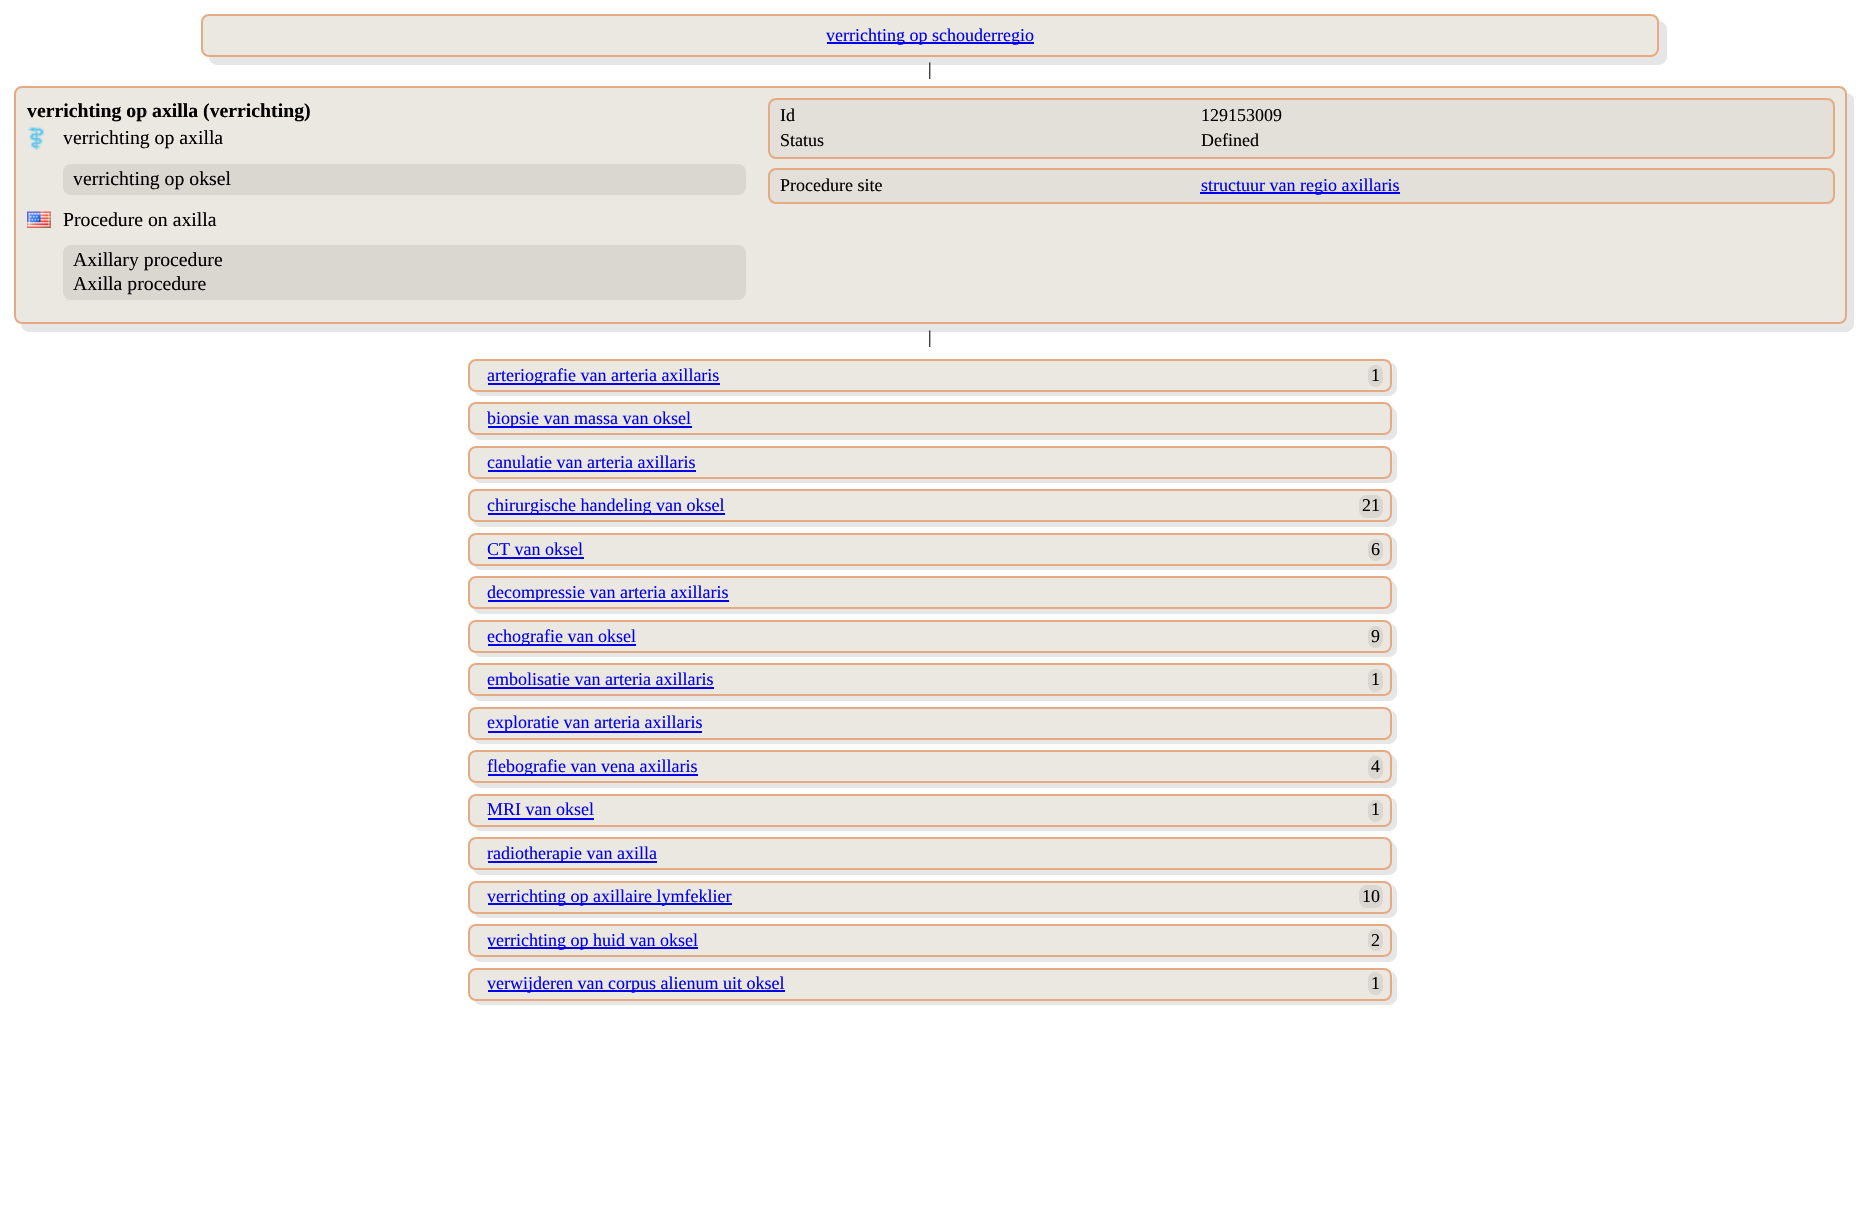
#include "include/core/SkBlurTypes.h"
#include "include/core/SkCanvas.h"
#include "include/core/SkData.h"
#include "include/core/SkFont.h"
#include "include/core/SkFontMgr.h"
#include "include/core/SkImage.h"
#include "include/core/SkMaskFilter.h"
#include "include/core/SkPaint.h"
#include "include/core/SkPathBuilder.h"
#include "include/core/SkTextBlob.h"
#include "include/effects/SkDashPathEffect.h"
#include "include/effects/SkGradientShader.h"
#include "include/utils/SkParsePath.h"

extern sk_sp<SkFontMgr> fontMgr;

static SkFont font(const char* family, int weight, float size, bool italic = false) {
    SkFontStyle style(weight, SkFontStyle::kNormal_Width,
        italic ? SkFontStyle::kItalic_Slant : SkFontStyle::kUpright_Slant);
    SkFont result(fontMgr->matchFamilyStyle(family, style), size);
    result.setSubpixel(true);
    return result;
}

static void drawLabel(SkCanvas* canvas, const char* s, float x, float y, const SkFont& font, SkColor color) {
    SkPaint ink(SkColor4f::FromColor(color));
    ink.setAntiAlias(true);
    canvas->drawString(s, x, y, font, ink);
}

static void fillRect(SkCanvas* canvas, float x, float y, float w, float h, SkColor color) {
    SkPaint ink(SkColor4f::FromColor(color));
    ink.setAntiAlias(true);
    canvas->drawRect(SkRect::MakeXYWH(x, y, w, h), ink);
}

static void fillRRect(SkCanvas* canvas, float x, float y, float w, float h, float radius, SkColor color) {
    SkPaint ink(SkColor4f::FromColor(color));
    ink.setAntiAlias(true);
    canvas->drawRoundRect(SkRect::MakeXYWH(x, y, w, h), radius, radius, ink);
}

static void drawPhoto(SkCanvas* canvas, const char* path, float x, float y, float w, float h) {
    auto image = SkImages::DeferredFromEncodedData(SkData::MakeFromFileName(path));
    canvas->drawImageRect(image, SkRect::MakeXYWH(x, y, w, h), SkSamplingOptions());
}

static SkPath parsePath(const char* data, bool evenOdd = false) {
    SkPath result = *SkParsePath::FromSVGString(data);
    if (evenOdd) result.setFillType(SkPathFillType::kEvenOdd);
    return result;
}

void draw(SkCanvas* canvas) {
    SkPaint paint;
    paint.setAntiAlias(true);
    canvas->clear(0xFFFFFFFF);
    paint.setColor(0xFFE6E6E6);
    canvas->drawPath(parsePath("M209 57C209 61 213 65 217 65H1659C1663 65 1667 61 1667 57V29C1667 25 1663 21 1659 21V50C1659 54 1656 57 1652 57Z"), paint);
    paint.setColor(0xFFEBE7E1);
    canvas->drawRoundRect(SkRect::MakeXYWH(202, 15, 1456, 41), 7, 7, paint);
    paint.setStroke(true);
    paint.setStrokeWidth(2);
    paint.setColor(0xFFE6AA83);
    canvas->drawRoundRect(SkRect::MakeXYWH(202, 15, 1456, 41), 7, 7, paint);
    fillRect(canvas, 827, 42, 207, 2, 0xFF0000EE);
    SkFont font1 = font("Liberation Serif", 400, 18);
    drawLabel(canvas, "verrichting op schouderregio", 826, 41, font1, 0xFF0000EE);
    drawLabel(canvas, "|", 928, 75, font1, 0xFF000000);
    paint.setStroke(false);
    paint.setColor(0xFFE6E6E6);
    canvas->drawPath(parsePath("M21 324C21 328 25 332 29 332H1846C1850 332 1854 328 1854 324V101C1854 97 1851 93 1846 93V316C1846 321 1843 324 1839 324Z"), paint);
    paint.setColor(0xFFEBE7E1);
    canvas->drawRoundRect(SkRect::MakeXYWH(15, 87, 1831, 236), 7, 7, paint);
    paint.setStroke(true);
    paint.setColor(0xFFE6AA83);
    canvas->drawRoundRect(SkRect::MakeXYWH(15, 87, 1831, 236), 7, 7, paint);
    SkFont font2 = font("Liberation Serif", 700, 19.75f);
    drawLabel(canvas, "verrichting op axilla (verrichting)", 27, 117, font2, 0xFF000000);
    drawPhoto(canvas, "assets/img1.png", 28, 127, 16, 23);
    SkFont font3 = font("Liberation Serif", 400, 19.75f);
    drawLabel(canvas, "verrichting op axilla", 63, 144, font3, 0xFF000000);
    fillRRect(canvas, 63, 164, 683, 31, 8, 0xFFDAD6D0);
    drawLabel(canvas, "verrichting op oksel", 73, 185, font3, 0xFF000000);
    drawPhoto(canvas, "assets/img2.png", 27, 211, 24, 17);
    drawLabel(canvas, "Procedure on axilla", 63, 226, font3, 0xFF000000);
    fillRRect(canvas, 63, 245, 683, 55, 8, 0xFFDAD6D0);
    drawLabel(canvas, "Axillary procedure", 73, 266, font3, 0xFF000000);
    drawLabel(canvas, "Axilla procedure", 73, 290, font3, 0xFF000000);
    paint.setStroke(false);
    paint.setColor(0xFFE3DFD9);
    canvas->drawRoundRect(SkRect::MakeXYWH(769, 99, 1065, 59), 7, 7, paint);
    paint.setStroke(true);
    paint.setColor(0xFFE6AA83);
    canvas->drawRoundRect(SkRect::MakeXYWH(769, 99, 1065, 59), 7, 7, paint);
    drawLabel(canvas, "Id", 780, 121, font1, 0xFF000000);
    drawLabel(canvas, "129153009", 1201, 121, font1, 0xFF000000);
    drawLabel(canvas, "Status", 780, 146, font1, 0xFF000000);
    drawLabel(canvas, "Defined", 1201, 146, font1, 0xFF000000);
    paint.setStroke(false);
    paint.setColor(0xFFE3DFD9);
    canvas->drawRoundRect(SkRect::MakeXYWH(769, 169, 1065, 34), 7, 7, paint);
    paint.setStroke(true);
    paint.setColor(0xFFE6AA83);
    canvas->drawRoundRect(SkRect::MakeXYWH(769, 169, 1065, 34), 7, 7, paint);
    drawLabel(canvas, "Procedure site", 780, 191, font1, 0xFF000000);
    fillRect(canvas, 1200, 192, 200, 2, 0xFF0000EE);
    drawLabel(canvas, "structuur van regio axillaris", 1201, 191, font1, 0xFF0000EE);
    drawLabel(canvas, "|", 928, 343, font1, 0xFF000000);
    paint.setStroke(false);
    paint.setColor(0xFFE6E6E6);
    canvas->drawPath(parsePath("M474 391C475 394 478 396 481 396H1389C1393 396 1397 392 1397 388V371C1397 367 1395 364 1392 363C1393 367 1392 371 1392 375C1392 381 1393 391 1384 392Z"), paint);
    paint.setColor(0xFFEBE7E1);
    canvas->drawRoundRect(SkRect::MakeXYWH(469, 360, 922, 31), 7, 7, paint);
    paint.setStroke(true);
    paint.setColor(0xFFE6AA83);
    canvas->drawRoundRect(SkRect::MakeXYWH(469, 360, 922, 31), 7, 7, paint);
    fillRect(canvas, 488, 383, 232, 2, 0xFF0000EE);
    drawLabel(canvas, "arteriografie van arteria axillaris", 487, 381, font1, 0xFF0000EE);
    fillRRect(canvas, 1368, 365, 15, 22, 7.5f, 0xFFDAD6D0);
    drawLabel(canvas, "1", 1371, 381, font1, 0xFF000000);
    paint.setStroke(false);
    paint.setColor(0xFFE6E6E6);
    canvas->drawPath(parsePath("M473 435C475 438 478 440 481 440H1389C1393 440 1397 436 1397 432V415C1397 412 1395 409 1392 407V418C1392 424 1393 435 1384 435Z"), paint);
    paint.setColor(0xFFEBE7E1);
    canvas->drawRoundRect(SkRect::MakeXYWH(469, 403, 922, 31), 7, 7, paint);
    paint.setStroke(true);
    paint.setColor(0xFFE6AA83);
    canvas->drawRoundRect(SkRect::MakeXYWH(469, 403, 922, 31), 7, 7, paint);
    fillRect(canvas, 488, 426, 204, 2, 0xFF0000EE);
    drawLabel(canvas, "biopsie van massa van oksel", 487, 424, font1, 0xFF0000EE);
    paint.setStroke(false);
    paint.setColor(0xFFE6E6E6);
    canvas->drawPath(parsePath("M474 478C475 481 478 483 481 483H1389C1393 483 1397 479 1397 475V458C1397 454 1395 451 1392 450C1393 454 1392 458 1392 462C1392 468 1393 478 1384 478Z"), paint);
    paint.setColor(0xFFEBE7E1);
    canvas->drawRoundRect(SkRect::MakeXYWH(469, 447, 922, 31), 7, 7, paint);
    paint.setStroke(true);
    paint.setColor(0xFFE6AA83);
    canvas->drawRoundRect(SkRect::MakeXYWH(469, 447, 922, 31), 7, 7, paint);
    drawLabel(canvas, "canulatie van arteria axillaris", 487, 468, font1, 0xFF0000EE);
    fillRect(canvas, 488, 470, 208, 2, 0xFF0000EE);
    paint.setStroke(false);
    paint.setColor(0xFFE6E6E6);
    canvas->drawPath(parsePath("M473 522C475 525 478 527 481 527H1389C1393 527 1397 523 1397 519V502C1397 499 1395 496 1392 494V506C1392 511 1393 522 1384 522Z"), paint);
    paint.setColor(0xFFEBE7E1);
    canvas->drawRoundRect(SkRect::MakeXYWH(469, 490, 922, 31), 7, 7, paint);
    paint.setStroke(true);
    paint.setColor(0xFFE6AA83);
    canvas->drawRoundRect(SkRect::MakeXYWH(469, 490, 922, 31), 7, 7, paint);
    fillRect(canvas, 488, 513, 237, 2, 0xFF0000EE);
    drawLabel(canvas, "chirurgische handeling van oksel", 487, 511, font1, 0xFF0000EE);
    fillRRect(canvas, 1359, 495, 24, 23, 8, 0xFFDAD6D0);
    drawLabel(canvas, "21", 1362, 511, font1, 0xFF000000);
    paint.setStroke(false);
    paint.setColor(0xFFE6E6E6);
    canvas->drawPath(parsePath("M474 565C475 568 478 570 481 570H1389C1393 570 1397 566 1397 562V545C1397 541 1395 538 1392 537C1393 541 1392 545 1392 549C1392 555 1393 565 1384 566Z"), paint);
    paint.setColor(0xFFEBE7E1);
    canvas->drawRoundRect(SkRect::MakeXYWH(469, 534, 922, 31), 7, 7, paint);
    paint.setStroke(true);
    paint.setColor(0xFFE6AA83);
    canvas->drawRoundRect(SkRect::MakeXYWH(469, 534, 922, 31), 7, 7, paint);
    drawLabel(canvas, "CT van oksel", 487, 555, font1, 0xFF0000EE);
    fillRect(canvas, 488, 557, 96, 2, 0xFF0000EE);
    fillRRect(canvas, 1368, 539, 15, 22, 7.5f, 0xFFDAD6D0);
    drawLabel(canvas, "6", 1371, 555, font1, 0xFF000000);
    paint.setStroke(false);
    paint.setColor(0xFFE6E6E6);
    canvas->drawPath(parsePath("M473 609C475 612 478 614 481 614H1389C1393 614 1397 610 1397 606V589C1397 586 1395 583 1392 581V592C1392 598 1393 609 1384 609Z"), paint);
    paint.setColor(0xFFEBE7E1);
    canvas->drawRoundRect(SkRect::MakeXYWH(469, 577, 922, 31), 7, 7, paint);
    paint.setStroke(true);
    paint.setColor(0xFFE6AA83);
    canvas->drawRoundRect(SkRect::MakeXYWH(469, 577, 922, 31), 7, 7, paint);
    fillRect(canvas, 488, 600, 241, 2, 0xFF0000EE);
    drawLabel(canvas, "decompressie van arteria axillaris", 487, 598, font1, 0xFF0000EE);
    paint.setStroke(false);
    paint.setColor(0xFFE6E6E6);
    canvas->drawPath(parsePath("M474 652C475 655 478 657 481 657H1389C1393 657 1397 653 1397 649V632C1397 628 1395 625 1392 624C1393 628 1392 632 1392 636C1392 642 1393 652 1384 652Z"), paint);
    paint.setColor(0xFFEBE7E1);
    canvas->drawRoundRect(SkRect::MakeXYWH(469, 621, 922, 31), 7, 7, paint);
    paint.setStroke(true);
    paint.setColor(0xFFE6AA83);
    canvas->drawRoundRect(SkRect::MakeXYWH(469, 621, 922, 31), 7, 7, paint);
    fillRect(canvas, 488, 644, 148, 2, 0xFF0000EE);
    drawLabel(canvas, "echografie van oksel", 487, 642, font1, 0xFF0000EE);
    fillRRect(canvas, 1368, 626, 15, 22, 7.5f, 0xFFDAD6D0);
    drawLabel(canvas, "9", 1371, 642, font1, 0xFF000000);
    paint.setStroke(false);
    paint.setColor(0xFFE6E6E6);
    canvas->drawPath(parsePath("M473 696C475 699 478 701 481 701H1389C1393 701 1397 697 1397 693V676C1397 673 1395 670 1392 668V680C1392 685 1393 696 1384 696Z"), paint);
    paint.setColor(0xFFEBE7E1);
    canvas->drawRoundRect(SkRect::MakeXYWH(469, 664, 922, 31), 7, 7, paint);
    paint.setStroke(true);
    paint.setColor(0xFFE6AA83);
    canvas->drawRoundRect(SkRect::MakeXYWH(469, 664, 922, 31), 7, 7, paint);
    drawLabel(canvas, "embolisatie van arteria axillaris", 487, 685, font1, 0xFF0000EE);
    fillRect(canvas, 488, 687, 226, 2, 0xFF0000EE);
    fillRRect(canvas, 1368, 669, 15, 23, 7.5f, 0xFFDAD6D0);
    drawLabel(canvas, "1", 1371, 685, font1, 0xFF000000);
    paint.setStroke(false);
    paint.setColor(0xFFE6E6E6);
    canvas->drawPath(parsePath("M474 739C475 742 478 744 481 744H1389C1393 744 1397 740 1397 736V719C1397 715 1395 712 1392 711C1393 715 1392 719 1392 723C1392 729 1393 739 1384 740Z"), paint);
    paint.setColor(0xFFEBE7E1);
    canvas->drawRoundRect(SkRect::MakeXYWH(469, 708, 922, 31), 7, 7, paint);
    paint.setStroke(true);
    paint.setColor(0xFFE6AA83);
    canvas->drawRoundRect(SkRect::MakeXYWH(469, 708, 922, 31), 7, 7, paint);
    fillRect(canvas, 488, 731, 214, 2, 0xFF0000EE);
    drawLabel(canvas, "exploratie van arteria axillaris", 487, 728, font1, 0xFF0000EE);
    paint.setStroke(false);
    paint.setColor(0xFFE6E6E6);
    canvas->drawPath(parsePath("M473 783C475 786 478 788 481 788H1389C1393 788 1397 784 1397 780V763C1397 760 1395 757 1392 755V766C1392 772 1393 783 1384 783Z"), paint);
    paint.setColor(0xFFEBE7E1);
    canvas->drawRoundRect(SkRect::MakeXYWH(469, 751, 922, 31), 7, 7, paint);
    paint.setStroke(true);
    paint.setColor(0xFFE6AA83);
    canvas->drawRoundRect(SkRect::MakeXYWH(469, 751, 922, 31), 7, 7, paint);
    fillRect(canvas, 488, 774, 210, 2, 0xFF0000EE);
    drawLabel(canvas, "flebografie van vena axillaris", 487, 772, font1, 0xFF0000EE);
    fillRRect(canvas, 1368, 756, 15, 23, 7.5f, 0xFFDAD6D0);
    drawLabel(canvas, "4", 1371, 772, font1, 0xFF000000);
    paint.setStroke(false);
    paint.setColor(0xFFE6E6E6);
    canvas->drawPath(parsePath("M474 826C475 829 478 831 481 831H1389C1393 831 1397 827 1397 823V806C1397 802 1395 799 1392 798C1393 802 1392 806 1392 810C1392 816 1393 826 1384 826Z"), paint);
    paint.setColor(0xFFEBE7E1);
    canvas->drawRoundRect(SkRect::MakeXYWH(469, 795, 922, 31), 7, 7, paint);
    paint.setStroke(true);
    paint.setColor(0xFFE6AA83);
    canvas->drawRoundRect(SkRect::MakeXYWH(469, 795, 922, 31), 7, 7, paint);
    drawLabel(canvas, "MRI van oksel", 487, 815, font1, 0xFF0000EE);
    fillRect(canvas, 488, 818, 106, 2, 0xFF0000EE);
    fillRRect(canvas, 1368, 800, 15, 22, 7.5f, 0xFFDAD6D0);
    drawLabel(canvas, "1", 1371, 815, font1, 0xFF000000);
    paint.setStroke(false);
    paint.setColor(0xFFE6E6E6);
    canvas->drawPath(parsePath("M473 870C475 873 478 875 481 875H1389C1393 875 1397 871 1397 867V850C1397 847 1395 844 1392 842V854C1392 859 1393 870 1384 870Z"), paint);
    paint.setColor(0xFFEBE7E1);
    canvas->drawRoundRect(SkRect::MakeXYWH(469, 838, 922, 31), 7, 7, paint);
    paint.setStroke(true);
    paint.setColor(0xFFE6AA83);
    canvas->drawRoundRect(SkRect::MakeXYWH(469, 838, 922, 31), 7, 7, paint);
    fillRect(canvas, 488, 861, 169, 2, 0xFF0000EE);
    drawLabel(canvas, "radiotherapie van axilla", 487, 859, font1, 0xFF0000EE);
    paint.setStroke(false);
    paint.setColor(0xFFE6E6E6);
    canvas->drawPath(parsePath("M474 913C475 916 478 918 481 918H1389C1393 918 1397 914 1397 910V893C1397 889 1395 886 1392 885C1393 889 1392 893 1392 897C1392 903 1393 913 1384 914Z"), paint);
    paint.setColor(0xFFEBE7E1);
    canvas->drawRoundRect(SkRect::MakeXYWH(469, 882, 922, 31), 7, 7, paint);
    paint.setStroke(true);
    paint.setColor(0xFFE6AA83);
    canvas->drawRoundRect(SkRect::MakeXYWH(469, 882, 922, 31), 7, 7, paint);
    fillRect(canvas, 488, 903, 244, 2, 0xFF0000EE);
    drawLabel(canvas, "verrichting op axillaire lymfeklier", 487, 902, font1, 0xFF0000EE);
    fillRRect(canvas, 1359, 885, 24, 23, 8, 0xFFDAD6D0);
    drawLabel(canvas, "10", 1362, 902, font1, 0xFF000000);
    paint.setStroke(false);
    paint.setColor(0xFFE6E6E6);
    canvas->drawPath(parsePath("M473 957C475 960 478 962 481 962H1389C1393 962 1397 958 1397 954V937C1397 934 1395 931 1392 929V940C1392 946 1393 957 1384 957Z"), paint);
    paint.setColor(0xFFEBE7E1);
    canvas->drawRoundRect(SkRect::MakeXYWH(469, 925, 922, 31), 7, 7, paint);
    paint.setStroke(true);
    paint.setColor(0xFFE6AA83);
    canvas->drawRoundRect(SkRect::MakeXYWH(469, 925, 922, 31), 7, 7, paint);
    fillRect(canvas, 488, 947, 210, 2, 0xFF0000EE);
    drawLabel(canvas, "verrichting op huid van oksel", 487, 946, font1, 0xFF0000EE);
    fillRRect(canvas, 1368, 929, 15, 22, 7.5f, 0xFFDAD6D0);
    drawLabel(canvas, "2", 1371, 946, font1, 0xFF000000);
    paint.setStroke(false);
    paint.setColor(0xFFE6E6E6);
    canvas->drawPath(parsePath("M474 1000C475 1003 478 1005 481 1005H1389C1393 1005 1397 1001 1397 997V980C1397 976 1395 973 1392 972C1393 976 1392 980 1392 984C1392 990 1393 1000 1384 1000Z"), paint);
    paint.setColor(0xFFEBE7E1);
    canvas->drawRoundRect(SkRect::MakeXYWH(469, 969, 922, 31), 7, 7, paint);
    paint.setStroke(true);
    paint.setColor(0xFFE6AA83);
    canvas->drawRoundRect(SkRect::MakeXYWH(469, 969, 922, 31), 7, 7, paint);
    fillRect(canvas, 488, 990, 297, 2, 0xFF0000EE);
    drawLabel(canvas, "verwijderen van corpus alienum uit oksel", 487, 989, font1, 0xFF0000EE);
    fillRRect(canvas, 1368, 972, 15, 23, 7.5f, 0xFFDAD6D0);
    drawLabel(canvas, "1", 1371, 989, font1, 0xFF000000);
}
